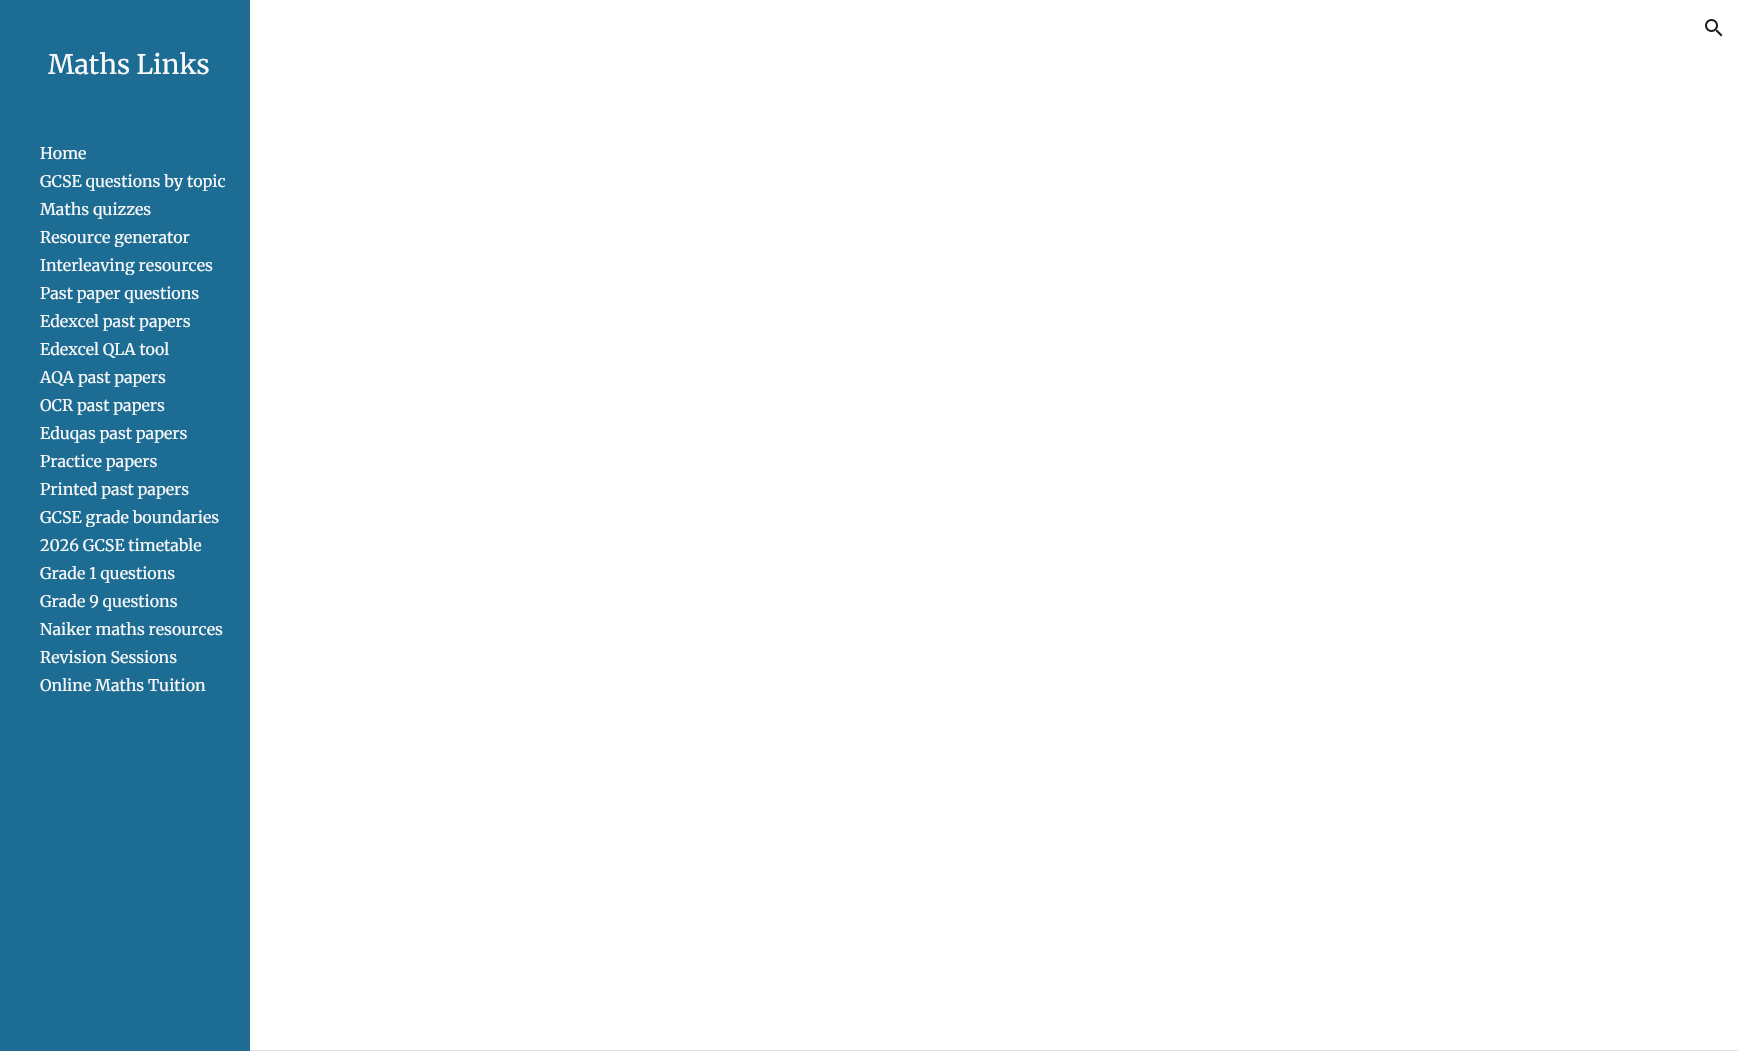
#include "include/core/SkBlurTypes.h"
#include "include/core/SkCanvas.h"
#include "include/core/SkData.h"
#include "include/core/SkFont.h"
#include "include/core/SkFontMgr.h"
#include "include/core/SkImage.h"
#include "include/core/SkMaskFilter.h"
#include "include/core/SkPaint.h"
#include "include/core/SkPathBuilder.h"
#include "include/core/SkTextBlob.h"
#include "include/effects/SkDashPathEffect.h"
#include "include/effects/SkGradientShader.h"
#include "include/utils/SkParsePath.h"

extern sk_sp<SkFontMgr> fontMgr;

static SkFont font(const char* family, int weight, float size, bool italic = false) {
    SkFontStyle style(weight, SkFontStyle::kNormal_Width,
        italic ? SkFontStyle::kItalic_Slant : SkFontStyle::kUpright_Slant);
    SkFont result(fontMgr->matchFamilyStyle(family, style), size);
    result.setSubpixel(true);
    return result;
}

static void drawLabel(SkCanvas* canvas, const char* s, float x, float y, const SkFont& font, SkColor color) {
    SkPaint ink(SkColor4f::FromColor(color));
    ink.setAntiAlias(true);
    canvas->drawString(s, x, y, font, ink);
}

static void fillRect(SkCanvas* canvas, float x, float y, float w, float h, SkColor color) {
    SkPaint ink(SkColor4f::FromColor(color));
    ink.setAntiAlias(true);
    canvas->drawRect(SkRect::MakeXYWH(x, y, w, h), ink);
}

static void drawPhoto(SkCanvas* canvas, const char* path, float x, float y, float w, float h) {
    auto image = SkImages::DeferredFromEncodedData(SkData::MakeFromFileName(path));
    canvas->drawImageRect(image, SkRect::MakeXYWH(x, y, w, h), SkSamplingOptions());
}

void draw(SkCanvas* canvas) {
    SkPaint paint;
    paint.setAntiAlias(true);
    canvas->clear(0xFFFFFFFF);
    drawPhoto(canvas, "assets/img1.png", 1705, 19, 18, 18);
    fillRect(canvas, 0, 0, 250, 1051, 0xFF1C6C94);
    SkFont font1 = font("Merriweather", 400, 26.75f);
    drawLabel(canvas, "Maths Links", 48, 74, font1, 0xFFF9F9F9);
    SkFont font2 = font("Merriweather", 400, 16);
    drawLabel(canvas, "Home", 40, 159, font2, 0xFFF9F9F9);
    drawLabel(canvas, "GCSE questions by topic", 40, 187, font2, 0xFFF9F9F9);
    drawLabel(canvas, "Maths quizzes", 40, 215, font2, 0xFFF9F9F9);
    canvas->save();
    canvas->clipRect(SkRect::MakeXYWH(36, 227, 202, 20));
    drawLabel(canvas, "Resource generator", 40, 243, font2, 0xFFF9F9F9);
    canvas->restore();
    canvas->save();
    canvas->clipRect(SkRect::MakeXYWH(36, 255, 202, 20));
    drawLabel(canvas, "Interleaving resources", 40, 271, font2, 0xFFF9F9F9);
    canvas->restore();
    drawLabel(canvas, "Past paper questions", 40, 299, font2, 0xFFF9F9F9);
    drawLabel(canvas, "Edexcel past papers", 40, 327, font2, 0xFFF9F9F9);
    drawLabel(canvas, "Edexcel QLA tool", 40, 355, font2, 0xFFF9F9F9);
    drawLabel(canvas, "AQA past papers", 40, 383, font2, 0xFFF9F9F9);
    drawLabel(canvas, "OCR past papers", 40, 411, font2, 0xFFF9F9F9);
    drawLabel(canvas, "Eduqas past papers", 40, 439, font2, 0xFFF9F9F9);
    drawLabel(canvas, "Practice papers", 40, 467, font2, 0xFFF9F9F9);
    drawLabel(canvas, "Printed past papers", 40, 495, font2, 0xFFF9F9F9);
    canvas->save();
    canvas->clipRect(SkRect::MakeXYWH(36, 507, 202, 20));
    drawLabel(canvas, "GCSE grade boundaries", 40, 523, font2, 0xFFF9F9F9);
    canvas->restore();
    drawLabel(canvas, "2026 GCSE timetable", 40, 551, font2, 0xFFF9F9F9);
    drawLabel(canvas, "Grade 1 questions", 40, 579, font2, 0xFFF9F9F9);
    drawLabel(canvas, "Grade 9 questions", 40, 607, font2, 0xFFF9F9F9);
    drawLabel(canvas, "Naiker maths resources", 40, 635, font2, 0xFFF9F9F9);
    drawLabel(canvas, "Revision Sessions", 40, 663, font2, 0xFFF9F9F9);
    drawLabel(canvas, "Online Maths Tuition", 40, 691, font2, 0xFFF9F9F9);
    fillRect(canvas, 250, 1050, 1488, 1, 0xFFE0E0E0);
}
